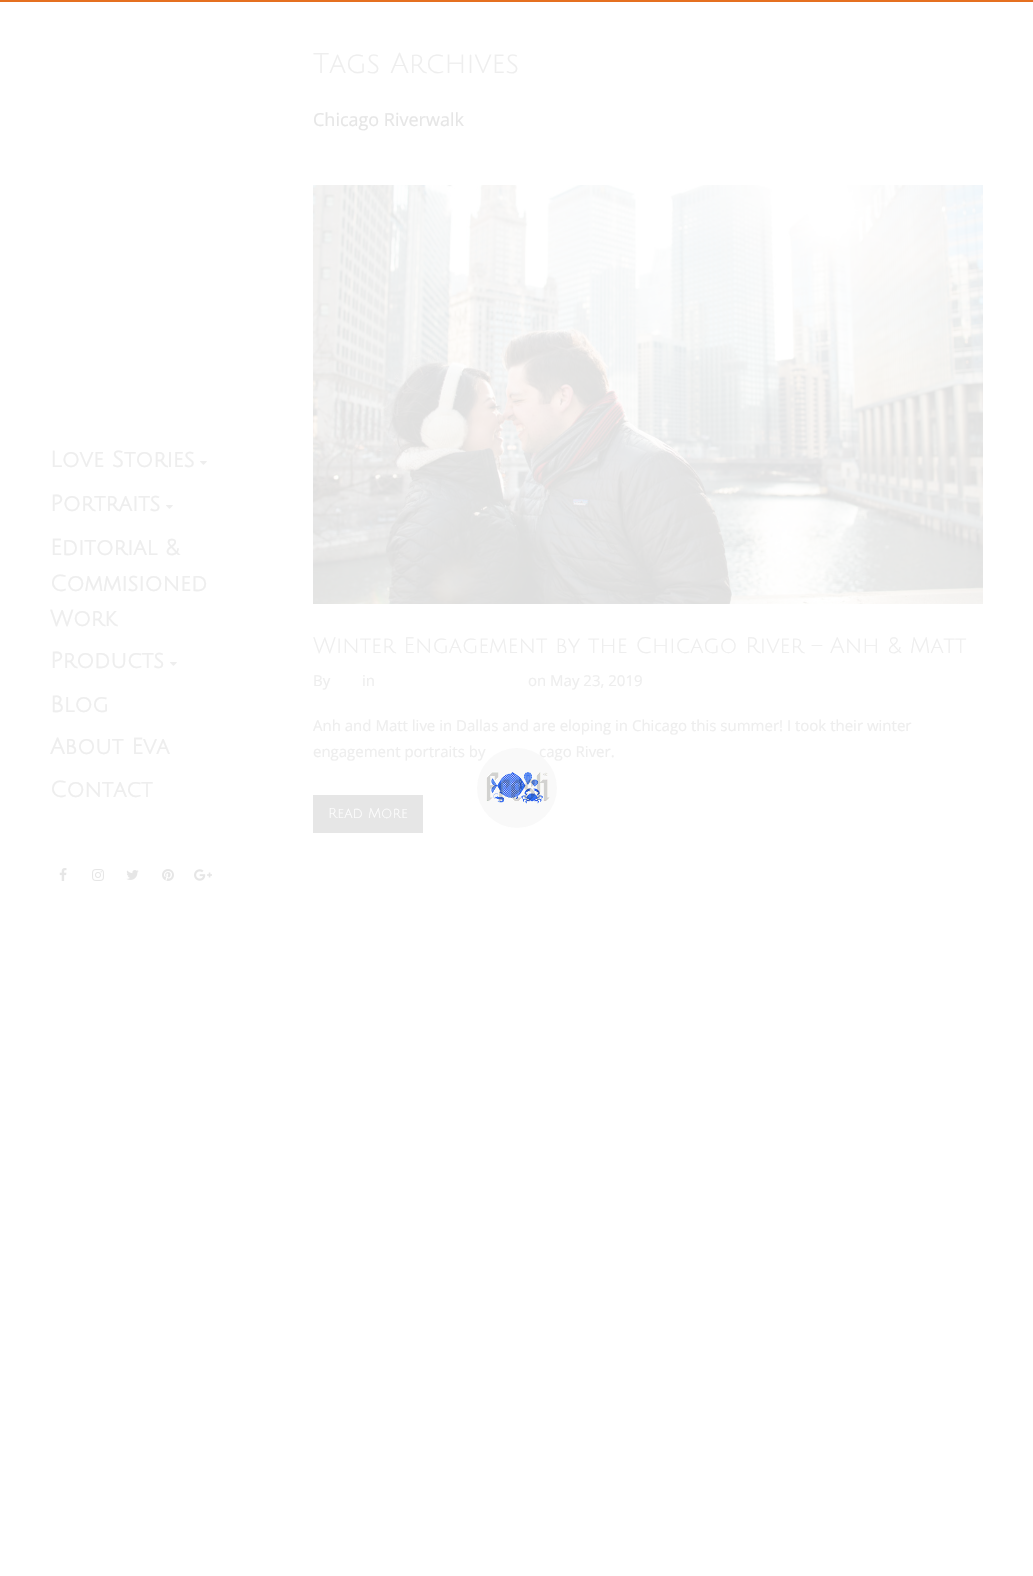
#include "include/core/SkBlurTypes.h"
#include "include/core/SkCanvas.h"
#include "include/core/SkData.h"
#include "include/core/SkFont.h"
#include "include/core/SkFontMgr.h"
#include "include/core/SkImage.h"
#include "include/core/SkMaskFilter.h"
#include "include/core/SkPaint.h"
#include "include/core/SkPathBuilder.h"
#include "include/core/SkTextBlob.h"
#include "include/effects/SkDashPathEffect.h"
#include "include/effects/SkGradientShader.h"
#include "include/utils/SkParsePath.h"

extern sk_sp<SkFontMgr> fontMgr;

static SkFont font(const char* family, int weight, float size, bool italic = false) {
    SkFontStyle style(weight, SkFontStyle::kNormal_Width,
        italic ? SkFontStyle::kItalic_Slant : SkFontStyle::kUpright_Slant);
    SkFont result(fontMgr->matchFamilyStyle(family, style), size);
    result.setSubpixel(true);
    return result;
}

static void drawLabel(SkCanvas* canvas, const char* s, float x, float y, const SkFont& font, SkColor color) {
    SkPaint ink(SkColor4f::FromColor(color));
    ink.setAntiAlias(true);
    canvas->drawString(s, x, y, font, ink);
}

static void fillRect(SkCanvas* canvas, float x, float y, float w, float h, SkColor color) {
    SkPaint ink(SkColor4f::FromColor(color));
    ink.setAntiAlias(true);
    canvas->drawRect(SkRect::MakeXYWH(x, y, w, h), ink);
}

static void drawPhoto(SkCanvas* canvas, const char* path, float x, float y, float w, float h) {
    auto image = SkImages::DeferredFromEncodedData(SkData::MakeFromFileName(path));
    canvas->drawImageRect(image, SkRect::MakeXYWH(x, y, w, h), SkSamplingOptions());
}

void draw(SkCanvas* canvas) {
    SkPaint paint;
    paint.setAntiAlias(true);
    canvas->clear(0xFFFFFFFF);
    fillRect(canvas, 0, 0, 1033, 2, 0xFFE57020);
    SkFont font1 = font("Julius Sans One", 700, 22);
    drawLabel(canvas, "Love Stories", 50, 467, font1, 0xFFEEEEEE);
    drawPhoto(canvas, "assets/img1.png", 200, 461, 7, 4);
    drawLabel(canvas, "Portraits", 50, 511, font1, 0xFFEEEEEE);
    drawPhoto(canvas, "assets/img1.png", 166, 505, 7, 4);
    drawLabel(canvas, "Editorial &", 50, 555, font1, 0xFFEEEEEE);
    drawLabel(canvas, "Commisioned", 50, 591, font1, 0xFFEEEEEE);
    drawLabel(canvas, "Work", 50, 626, font1, 0xFFEEEEEE);
    drawLabel(canvas, "Products", 50, 668, font1, 0xFFEEEEEE);
    drawPhoto(canvas, "assets/img1.png", 170, 662, 7, 4);
    drawLabel(canvas, "Blog", 50, 712, font1, 0xFFEEEEEE);
    drawLabel(canvas, "About Eva", 50, 754, font1, 0xFFEEEEEE);
    drawLabel(canvas, "Contact", 50, 797, font1, 0xFFEEEEEE);
    drawPhoto(canvas, "assets/img2.png", 59, 868, 8, 13);
    drawPhoto(canvas, "assets/img3.png", 92, 869, 12, 12);
    drawPhoto(canvas, "assets/img4.png", 126, 870, 13, 10);
    drawPhoto(canvas, "assets/img5.png", 162, 869, 12, 12);
    drawPhoto(canvas, "assets/img6.png", 194, 869, 18, 12);
    SkFont font2 = font("Julius Sans One", 400, 28);
    drawLabel(canvas, "Tags Archives", 313, 73, font2, 0xFFEEEEEE);
    SkFont font3 = font("Open Sans", 400, 18);
    drawLabel(canvas, "Chicago Riverwalk", 313, 126, font3, 0xFFE6E6E6);
    drawPhoto(canvas, "assets/img7.png", 313, 185, 670, 419);
    SkFont font4 = font("Julius Sans One", 400, 22);
    drawLabel(canvas, "Winter Engagement by the Chicago River – Anh & Matt", 313, 653, font4, 0xFFEEEEEE);
    SkFont font5 = font("Open Sans", 400, 15);
    drawLabel(canvas, "By", 313, 686, font5, 0xFFEEEEEE);
    drawLabel(canvas, "in", 362, 686, font5, 0xFFEEEEEE);
    drawLabel(canvas, "on May 23, 2019", 528, 686, font5, 0xFFEEEEEE);
    drawLabel(canvas, "Anh and Matt live in Dallas and are eloping in Chicago this summer! I took their winter", 313, 731, font5, 0xFFEEEEEE);
    drawLabel(canvas, "engagement portraits by", 313, 757, font5, 0xFFEEEEEE);
    drawLabel(canvas, "cago River.", 539, 757, font5, 0xFFEEEEEE);
    fillRect(canvas, 313, 795, 110, 38, 0xFFE6E6E6);
    SkFont font6 = font("Julius Sans One", 400, 14);
    drawLabel(canvas, "Read More", 328, 818, font6, 0xFFFFFFFF);
    drawPhoto(canvas, "assets/img8.png", 477, 748, 80, 80);
}
